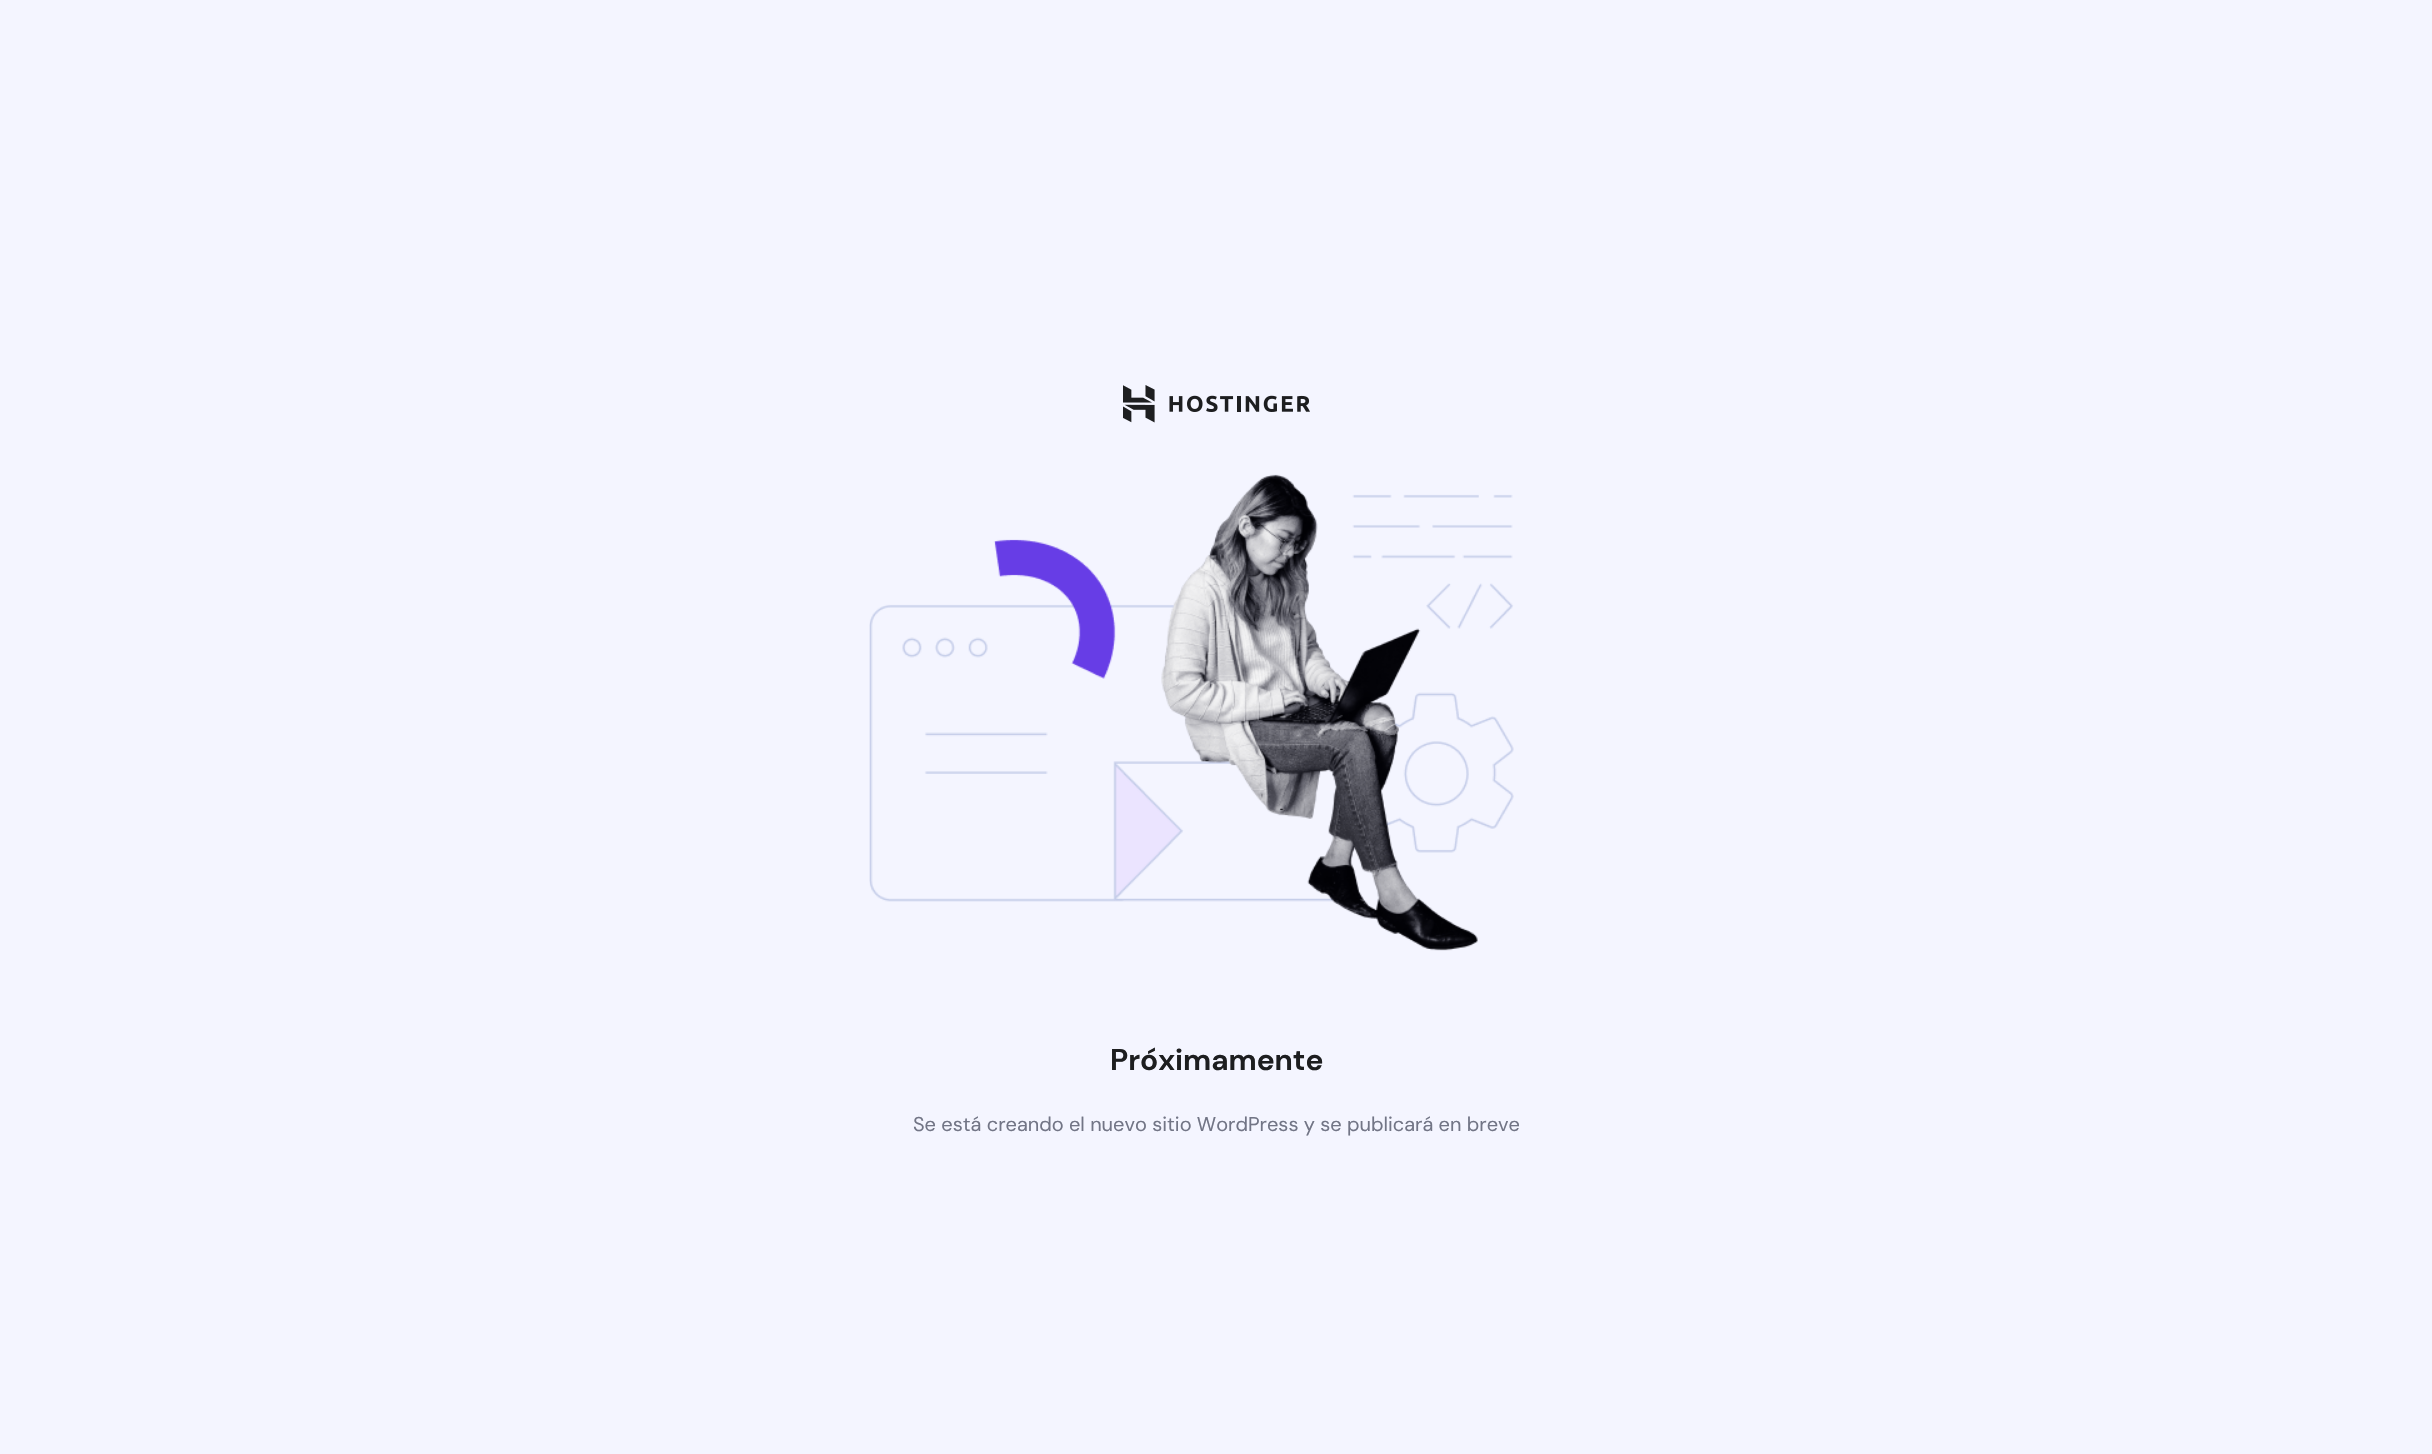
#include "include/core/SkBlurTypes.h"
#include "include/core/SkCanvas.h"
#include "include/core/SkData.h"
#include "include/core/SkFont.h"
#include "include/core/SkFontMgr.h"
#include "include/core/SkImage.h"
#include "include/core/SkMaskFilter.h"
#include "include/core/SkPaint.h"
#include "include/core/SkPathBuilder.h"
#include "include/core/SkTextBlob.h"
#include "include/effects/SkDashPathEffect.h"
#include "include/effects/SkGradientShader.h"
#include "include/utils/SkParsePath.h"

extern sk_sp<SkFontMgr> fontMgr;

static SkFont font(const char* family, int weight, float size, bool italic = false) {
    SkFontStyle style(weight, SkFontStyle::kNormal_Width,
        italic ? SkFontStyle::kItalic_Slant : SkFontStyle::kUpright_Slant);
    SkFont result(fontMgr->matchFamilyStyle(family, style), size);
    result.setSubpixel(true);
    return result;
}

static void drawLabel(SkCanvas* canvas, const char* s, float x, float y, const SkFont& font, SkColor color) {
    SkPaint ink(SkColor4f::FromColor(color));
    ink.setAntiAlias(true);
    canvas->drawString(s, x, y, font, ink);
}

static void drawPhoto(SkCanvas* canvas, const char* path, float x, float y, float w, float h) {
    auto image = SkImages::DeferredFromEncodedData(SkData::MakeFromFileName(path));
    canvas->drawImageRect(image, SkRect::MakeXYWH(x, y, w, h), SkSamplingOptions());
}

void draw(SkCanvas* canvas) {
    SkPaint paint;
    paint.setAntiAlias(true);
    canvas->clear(0xFFF4F5FF);
    drawPhoto(canvas, "assets/img1.png", 1123, 385, 187, 38);
    drawPhoto(canvas, "assets/img2.png", 869, 474, 645, 477);
    SkFont font1 = font("DM Sans", 700, 30);
    drawLabel(canvas, "Próximamente", 1110, 1070, font1, 0xFF1D1E20);
    SkFont font2 = font("DM Sans", 400, 20);
    drawLabel(canvas, "Se está creando el nuevo sitio WordPress y se publicará en breve", 913, 1131, font2, 0xFF727586);
}
